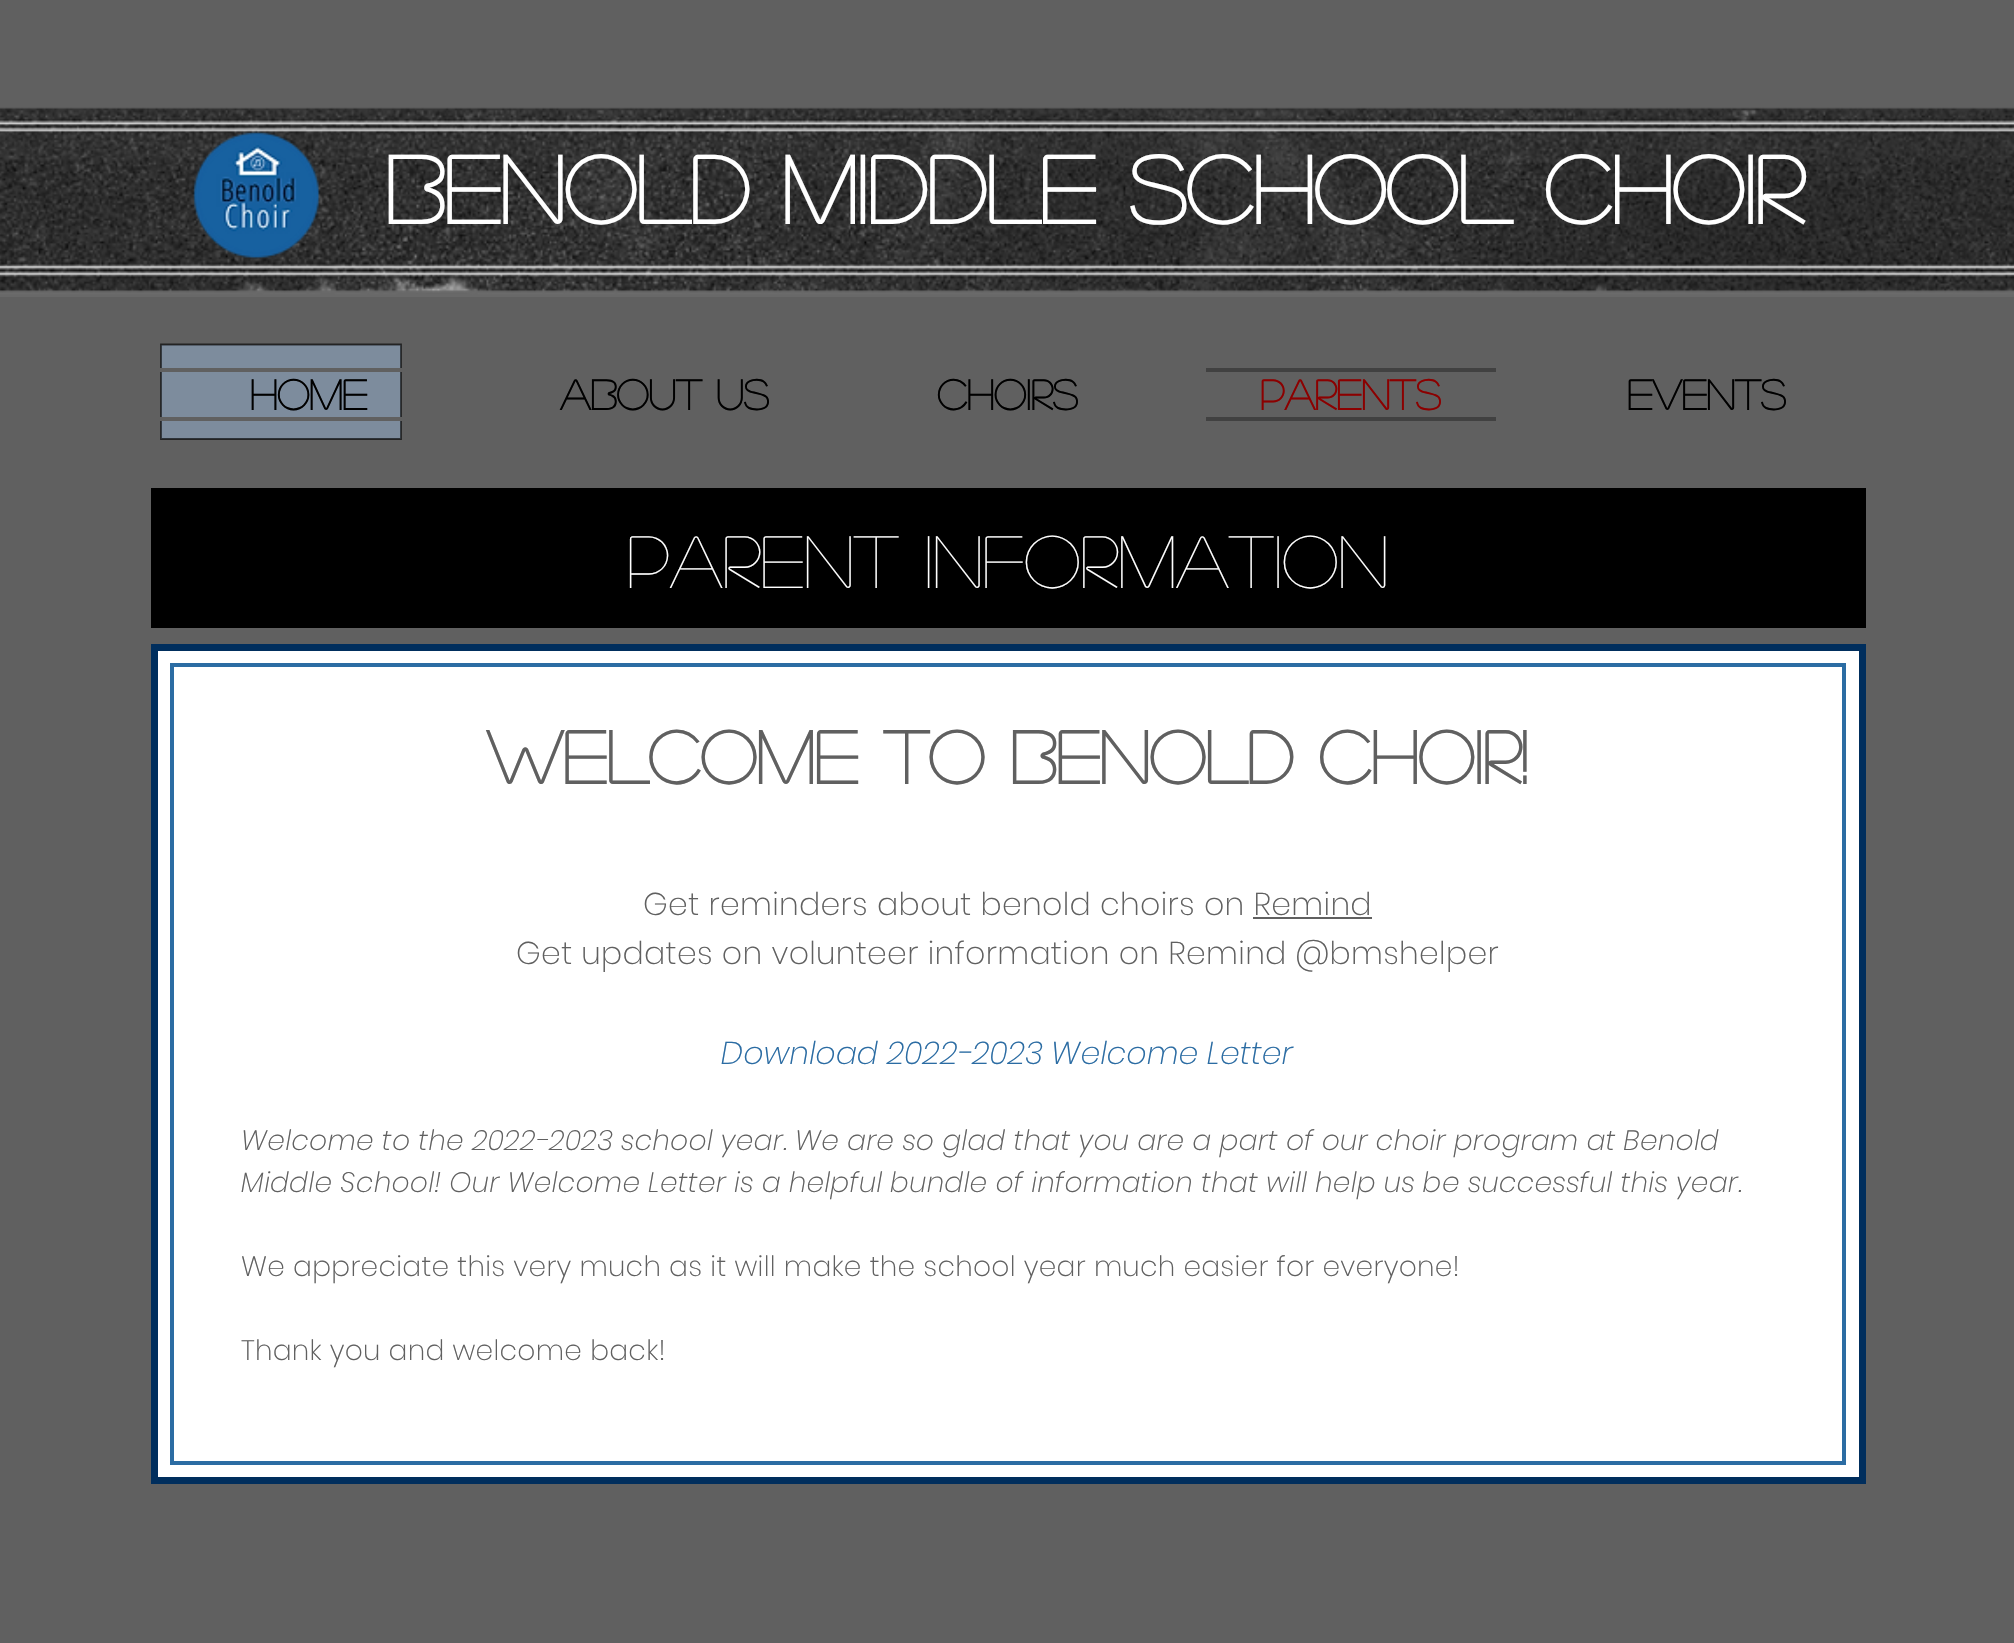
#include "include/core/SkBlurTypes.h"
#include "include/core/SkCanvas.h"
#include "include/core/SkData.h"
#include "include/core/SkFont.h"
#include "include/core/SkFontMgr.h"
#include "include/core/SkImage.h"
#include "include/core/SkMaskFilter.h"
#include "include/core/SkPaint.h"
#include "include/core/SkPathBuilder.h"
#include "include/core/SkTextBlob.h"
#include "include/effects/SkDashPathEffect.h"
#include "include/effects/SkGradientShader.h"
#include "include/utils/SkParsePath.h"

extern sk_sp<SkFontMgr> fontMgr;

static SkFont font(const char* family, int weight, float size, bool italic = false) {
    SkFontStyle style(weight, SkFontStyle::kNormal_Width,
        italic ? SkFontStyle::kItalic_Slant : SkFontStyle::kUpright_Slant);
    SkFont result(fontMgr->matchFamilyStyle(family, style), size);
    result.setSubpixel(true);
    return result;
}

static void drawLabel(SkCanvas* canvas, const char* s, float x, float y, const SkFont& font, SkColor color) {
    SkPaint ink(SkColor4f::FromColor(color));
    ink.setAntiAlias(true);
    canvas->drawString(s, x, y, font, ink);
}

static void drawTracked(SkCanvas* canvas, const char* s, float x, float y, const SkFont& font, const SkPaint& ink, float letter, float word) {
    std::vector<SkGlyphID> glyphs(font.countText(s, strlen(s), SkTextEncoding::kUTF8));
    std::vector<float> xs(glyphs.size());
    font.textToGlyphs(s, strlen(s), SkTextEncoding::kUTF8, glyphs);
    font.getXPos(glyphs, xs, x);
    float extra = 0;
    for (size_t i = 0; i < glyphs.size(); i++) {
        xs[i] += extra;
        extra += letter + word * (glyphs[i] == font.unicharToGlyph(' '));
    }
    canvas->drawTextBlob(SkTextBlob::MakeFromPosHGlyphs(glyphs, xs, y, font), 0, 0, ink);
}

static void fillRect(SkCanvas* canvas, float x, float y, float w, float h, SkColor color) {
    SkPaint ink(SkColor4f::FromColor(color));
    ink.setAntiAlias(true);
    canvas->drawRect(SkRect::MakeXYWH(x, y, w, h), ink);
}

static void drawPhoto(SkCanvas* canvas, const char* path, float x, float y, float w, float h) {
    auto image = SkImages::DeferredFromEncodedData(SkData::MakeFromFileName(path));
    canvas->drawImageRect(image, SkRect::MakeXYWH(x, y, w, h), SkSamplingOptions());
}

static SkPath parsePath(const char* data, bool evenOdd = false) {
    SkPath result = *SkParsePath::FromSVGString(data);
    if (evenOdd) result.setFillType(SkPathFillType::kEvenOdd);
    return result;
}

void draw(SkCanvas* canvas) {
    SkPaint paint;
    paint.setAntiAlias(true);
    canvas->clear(0xFF606060);
    drawPhoto(canvas, "assets/img1.png", 0, 107, 2014, 190);
    drawPhoto(canvas, "assets/img2.png", 193, 131, 127, 128);
    SkFont font1 = font("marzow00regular", 700, 94.5f);
    drawLabel(canvas, "Benold Middle School Choir", 385, 224, font1, 0xFFFFFFFF);
    fillRect(canvas, 161, 345, 240, 94, 0xFF7D8C9D);
    paint.setStroke(true);
    paint.setStrokeWidth(1.8f);
    paint.setColor(0xA3000000);
    canvas->drawPath(parsePath("M401 344.5V439H161V344.5Z"), paint);
    fillRect(canvas, 160, 368, 242, 4, 0xFF606060);
    fillRect(canvas, 160, 417, 242, 4, 0xFF606060);
    SkFont font2 = font("marzow00regular", 700, 42);
    drawLabel(canvas, "Home", 250, 410, font2, 0xFF000000);
    drawLabel(canvas, "About Us", 560, 410, font2, 0xFF000000);
    drawLabel(canvas, "Choirs", 937, 410, font2, 0xFF000000);
    fillRect(canvas, 1206, 368, 290, 4, 0xFF414141);
    fillRect(canvas, 1206, 417, 290, 4, 0xFF414141);
    drawLabel(canvas, "Parents", 1260, 410, font2, 0xFF8B0000);
    drawLabel(canvas, "Events", 1627, 410, font2, 0xFF000000);
    fillRect(canvas, 151, 488, 1715, 140, 0xFF000000);
    SkFont font3 = font("marzow00regular", 400, 73.5f);
    drawLabel(canvas, "Parent Information", 627, 588, font3, 0xFFFFFFFF);
    paint.setStroke(false);
    paint.setColor(0xFFFFFFFF);
    canvas->drawRect(SkRect::MakeXYWH(154.5f, 647.5f, 1708, 833), paint);
    paint.setStroke(true);
    paint.setStrokeWidth(7);
    paint.setColor(0xFF002E5D);
    canvas->drawRect(SkRect::MakeXYWH(154.5f, 647.5f, 1708, 833), paint);
    paint.setStrokeWidth(4);
    paint.setColor(0xFF2B6CA3);
    canvas->drawRect(SkRect::MakeXYWH(172, 665, 1672, 798), paint);
    SkFont font4 = font("marzow00regular", 700, 73.5f);
    drawLabel(canvas, "Welcome to Benold Choir!", 486, 784, font4, 0xFF606060);
    SkFont font5 = font("Poppins", 200, 31.5f);
    paint.setStroke(false);
    paint.setColor(0xFF606060);
    drawTracked(canvas, "Get reminders about benold choirs on Remind", 643, 915, font5, paint, 0.32f, 0);
    fillRect(canvas, 1253, 917, 119, 2, 0xFF606060);
    drawTracked(canvas, "Get updates on volunteer information on Remind @bmshelper", 516, 964, font5, paint, 0.32f, 0);
    SkFont font6 = font("Poppins", 200, 31.5f, true);
    drawLabel(canvas, "Download 2022-2023 Welcome Letter", 721, 1064, font6, 0xFF2B6CA3);
    SkFont font7 = font("Poppins", 200, 28, true);
    drawTracked(canvas, "Welcome to the 2022-2023 school year. We are so glad that you are a part of our choir program at Benold", 241, 1150, font7, paint, 0.28f, 0);
    drawTracked(canvas, "Middle School! Our Welcome Letter is a helpful bundle of information that will help us be successful this year.", 241, 1192, font7, paint, 0.28f, 0);
    SkFont font8 = font("Poppins", 200, 28);
    drawTracked(canvas, "We appreciate this very much as it will make the school year much easier for everyone!", 241, 1276, font8, paint, 0.28f, 0);
    drawTracked(canvas, "Thank you and welcome back!", 241, 1360, font8, paint, 0.28f, 0);
}
